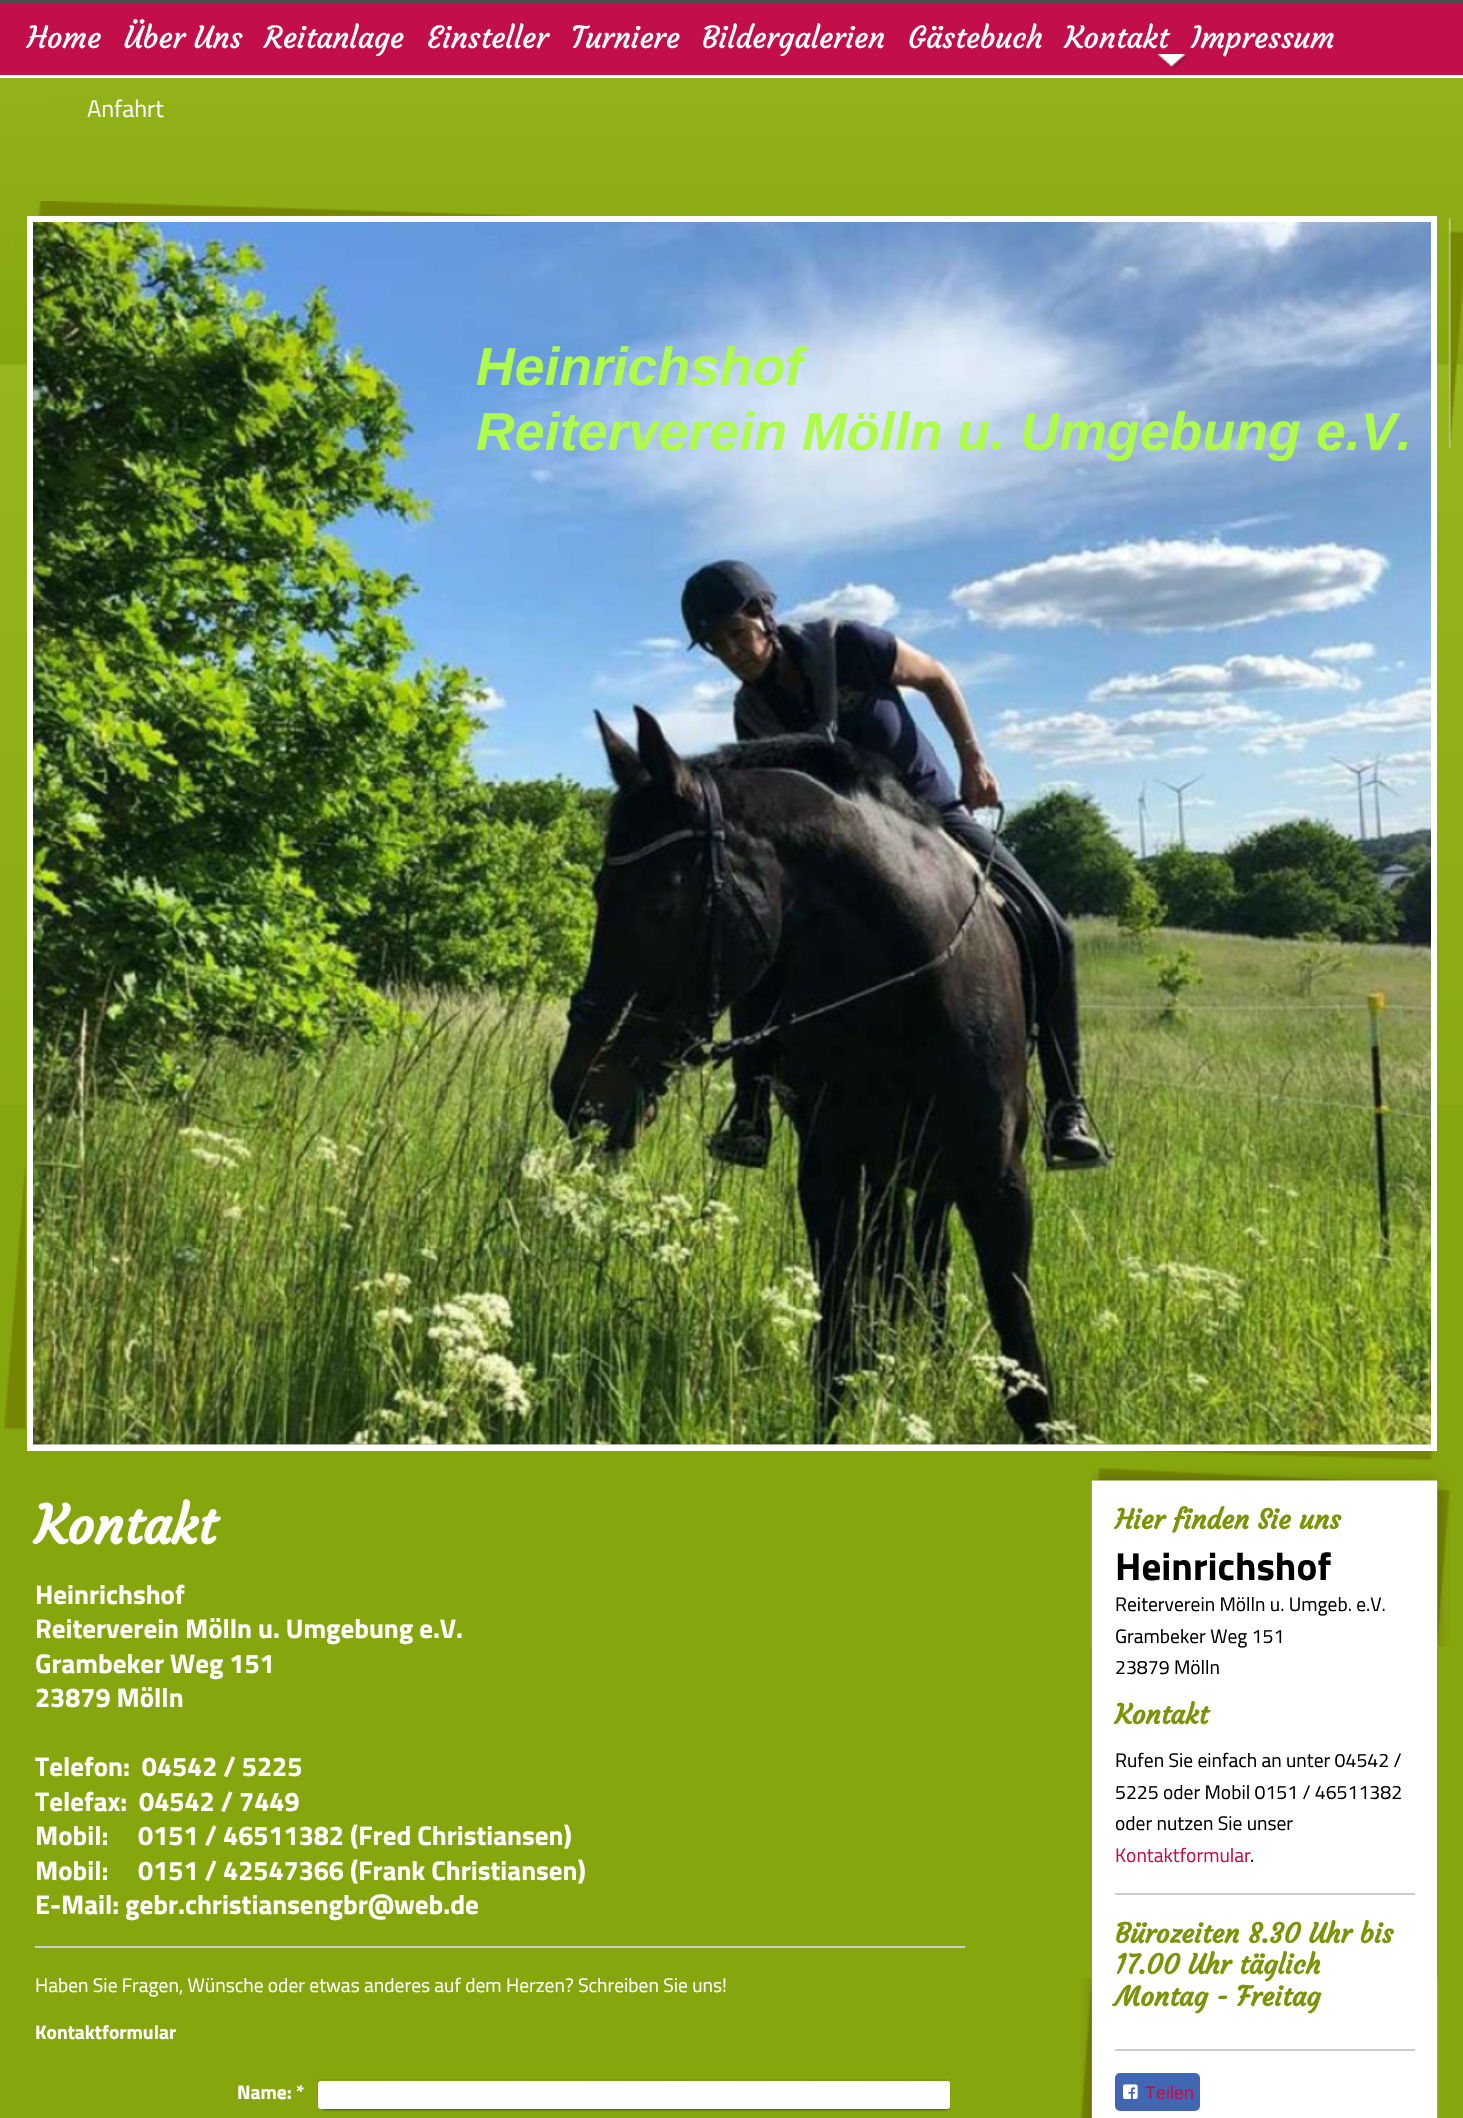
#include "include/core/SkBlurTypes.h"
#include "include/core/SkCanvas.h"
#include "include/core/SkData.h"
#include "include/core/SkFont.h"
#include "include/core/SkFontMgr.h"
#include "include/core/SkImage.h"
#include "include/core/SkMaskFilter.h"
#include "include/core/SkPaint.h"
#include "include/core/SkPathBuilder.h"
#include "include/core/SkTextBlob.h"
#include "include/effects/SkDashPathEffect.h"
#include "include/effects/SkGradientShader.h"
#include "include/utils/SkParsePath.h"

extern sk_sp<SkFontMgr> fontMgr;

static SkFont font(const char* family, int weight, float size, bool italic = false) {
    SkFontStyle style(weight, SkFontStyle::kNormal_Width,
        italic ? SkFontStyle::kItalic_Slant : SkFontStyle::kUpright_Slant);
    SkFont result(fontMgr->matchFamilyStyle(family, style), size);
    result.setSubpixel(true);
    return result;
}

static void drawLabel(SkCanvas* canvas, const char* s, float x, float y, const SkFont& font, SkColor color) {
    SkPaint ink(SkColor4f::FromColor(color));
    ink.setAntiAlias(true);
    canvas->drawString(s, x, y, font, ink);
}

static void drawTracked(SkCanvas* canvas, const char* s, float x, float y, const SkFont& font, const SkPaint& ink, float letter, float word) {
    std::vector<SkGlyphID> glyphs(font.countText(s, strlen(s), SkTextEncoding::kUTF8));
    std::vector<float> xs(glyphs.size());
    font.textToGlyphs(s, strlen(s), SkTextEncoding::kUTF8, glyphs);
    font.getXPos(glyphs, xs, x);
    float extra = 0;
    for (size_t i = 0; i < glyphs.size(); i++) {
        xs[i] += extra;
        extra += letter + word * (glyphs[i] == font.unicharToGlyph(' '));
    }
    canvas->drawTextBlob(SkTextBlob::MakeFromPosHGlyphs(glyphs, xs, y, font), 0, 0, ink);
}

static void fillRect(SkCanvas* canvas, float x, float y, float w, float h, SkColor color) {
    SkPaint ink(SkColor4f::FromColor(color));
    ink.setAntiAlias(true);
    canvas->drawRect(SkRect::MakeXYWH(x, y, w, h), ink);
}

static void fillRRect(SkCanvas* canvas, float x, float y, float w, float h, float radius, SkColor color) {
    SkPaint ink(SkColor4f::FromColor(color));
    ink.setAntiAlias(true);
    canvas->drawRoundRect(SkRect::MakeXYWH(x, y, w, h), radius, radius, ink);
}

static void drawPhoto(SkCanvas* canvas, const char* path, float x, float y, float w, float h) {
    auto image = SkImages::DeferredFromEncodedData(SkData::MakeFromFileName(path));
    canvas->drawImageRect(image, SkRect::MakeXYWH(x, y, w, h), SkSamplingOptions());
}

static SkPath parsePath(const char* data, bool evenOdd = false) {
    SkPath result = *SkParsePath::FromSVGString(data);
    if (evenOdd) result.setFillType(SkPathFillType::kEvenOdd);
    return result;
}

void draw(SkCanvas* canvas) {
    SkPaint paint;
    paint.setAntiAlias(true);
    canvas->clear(0xFF86A60D);
    drawPhoto(canvas, "assets/img1.png", 0, 78, 1463, 1027);
    fillRect(canvas, 0, 3, 1463, 72, 0xFFC20E4A);
    fillRect(canvas, 0, 0, 1463, 3, 0xFF4D4D4D);
    fillRect(canvas, 0, 75, 1463, 3, 0xFFFFFFFF);
    SkFont font1 = font("Courgette", 400, 30);
    drawLabel(canvas, "Home", 27, 48, font1, 0xFFFFFFFF);
    drawLabel(canvas, "Über Uns", 124, 48, font1, 0xFFFFFFFF);
    drawLabel(canvas, "Reitanlage", 264, 48, font1, 0xFFFFFFFF);
    drawLabel(canvas, "Einsteller", 427, 48, font1, 0xFFFFFFFF);
    drawLabel(canvas, "Turniere", 571, 48, font1, 0xFFFFFFFF);
    drawLabel(canvas, "Bildergalerien", 702, 48, font1, 0xFFFFFFFF);
    drawLabel(canvas, "Gästebuch", 908, 48, font1, 0xFFFFFFFF);
    drawPhoto(canvas, "assets/img2.png", 1157, 54, 31, 16);
    drawLabel(canvas, "Kontakt", 1065, 48, font1, 0xFFFFFFFF);
    drawLabel(canvas, "Impressum", 1191, 48, font1, 0xFFFFFFFF);
    SkFont font2 = font("Titillium Web", 400, 24);
    drawLabel(canvas, "Anfahrt", 87, 117, font2, 0xFFFFFFFF);
    drawPhoto(canvas, "assets/img3.png", 15, 201, 1448, 248);
    drawPhoto(canvas, "assets/img5.png", 4, 1165, 1429, 295);
    paint.setStroke(true);
    paint.setStrokeWidth(6);
    paint.setColor(0xFFFFFFFF);
    canvas->drawRect(SkRect::MakeXYWH(30, 219, 1404, 1229), paint);
    fillRect(canvas, 33, 1444, 1398, 1, 0xFFCCCCCC);
    drawPhoto(canvas, "assets/img4.png", 33, 222, 1398, 1223);
    SkFont font3 = font("Liberation Sans", 700, 53.5f, true);
    drawLabel(canvas, "Heinrichshof", 476, 385, font3, 0xFFAEFB4D);
    paint.setStroke(false);
    paint.setColor(0xFFAEFB4D);
    drawTracked(canvas, "Reiterverein Mölln u. Umgebung e.V.", 476, 450, font3, paint, 0.15f, 0);
    SkFont font4 = font("Courgette", 700, 52.5f);
    drawLabel(canvas, "Kontakt", 35, 1544, font4, 0xFFFFFFFF);
    SkFont font5 = font("Titillium Web", 700, 27);
    drawLabel(canvas, "Heinrichshof", 35, 1604, font5, 0xFFFFFFFF);
    drawLabel(canvas, "Reiterverein Mölln u. Umgebung e.V.", 35, 1638, font5, 0xFFFFFFFF);
    drawLabel(canvas, "Grambeker Weg 151", 35, 1673, font5, 0xFFFFFFFF);
    drawLabel(canvas, "23879 Mölln", 35, 1707, font5, 0xFFFFFFFF);
    drawLabel(canvas, "Telefon:  04542 / 5225", 35, 1776, font5, 0xFFFFFFFF);
    drawLabel(canvas, "Telefax:  04542 / 7449", 35, 1811, font5, 0xFFFFFFFF);
    drawLabel(canvas, "Mobil:     0151 / 46511382 (Fred Christiansen)", 35, 1845, font5, 0xFFFFFFFF);
    drawLabel(canvas, "Mobil:     0151 / 42547366 (Frank Christiansen)", 35, 1880, font5, 0xFFFFFFFF);
    drawLabel(canvas, "E-Mail: gebr.christiansengbr@web.de", 35, 1914, font5, 0xFFFFFFFF);
    fillRect(canvas, 35, 1946, 930, 2, 0xFFCCCCCC);
    SkFont font6 = font("Titillium Web", 400, 19.5f);
    drawLabel(canvas, "Haben Sie Fragen, Wünsche oder etwas anderes auf dem Herzen? Schreiben Sie uns!", 35, 1992, font6, 0xFFFFFFFF);
    SkFont font7 = font("Titillium Web", 700, 19.5f);
    drawLabel(canvas, "Kontaktformular", 35, 2039, font7, 0xFFFFFFFF);
    paint.setColor(0xFF7B990C);
    canvas->drawPath(parsePath("M320 2079C318 2079 317 2080 317 2082V2105C317 2106 318 2107 318 2108C317 2105 318 2094 318 2091C318 2089 316 2081 321 2080L948 2081C947 2080 946 2079 945 2079Z"), paint);
    paint.setColor(0xCC000000);
    paint.setMaskFilter(SkMaskFilter::MakeBlur(kNormal_SkBlurStyle, 1.5f));
    canvas->drawRect(SkRect::MakeXYWH(323, 2087, 625, 22), paint);
    paint.setMaskFilter(nullptr);
    drawLabel(canvas, "Name: *", 237, 2099, font7, 0xFFFFFFFF);
    fillRRect(canvas, 318, 2081, 632, 28, 3, 0xFFFFFFFF);
    drawPhoto(canvas, "assets/img6.png", 1091, 1468, 360, 179);
    drawPhoto(canvas, "assets/img8.png", 1080, 1978, 358, 140);
    fillRect(canvas, 1092, 1481, 345, 637, 0xFFFFFFFF);
    SkFont font8 = font("Courgette", 700, 27);
    drawLabel(canvas, "Hier finden Sie uns", 1115, 1529, font8, 0xFF7A9406);
    SkFont font9 = font("Titillium Web", 700, 39);
    drawLabel(canvas, "Heinrichshof", 1115, 1580, font9, 0xFF000000);
    drawLabel(canvas, "Reiterverein Mölln u. Umgeb. e.V.", 1115, 1611, font6, 0xFF000000);
    drawLabel(canvas, "Grambeker Weg 151", 1115, 1643, font6, 0xFF000000);
    drawLabel(canvas, "23879 Mölln", 1115, 1674, font6, 0xFF000000);
    drawLabel(canvas, "Kontakt", 1115, 1724, font8, 0xFF7A9406);
    drawLabel(canvas, "Rufen Sie einfach an unter 04542 /", 1115, 1767, font6, 0xFF000000);
    drawLabel(canvas, "5225 oder Mobil 0151 / 46511382", 1115, 1799, font6, 0xFF000000);
    drawLabel(canvas, "oder nutzen Sie unser", 1115, 1830, font6, 0xFF000000);
    drawLabel(canvas, "Kontaktformular", 1115, 1862, font6, 0xFFC20E4A);
    drawLabel(canvas, ".", 1250, 1862, font6, 0xFF000000);
    fillRect(canvas, 1115, 1893, 300, 2, 0xFFCCCCCC);
    drawLabel(canvas, "Bürozeiten 8.30 Uhr bis", 1115, 1943, font8, 0xFF7A9406);
    drawLabel(canvas, "17.00 Uhr täglich", 1115, 1974, font8, 0xFF7A9406);
    drawLabel(canvas, "Montag - Freitag", 1115, 2006, font8, 0xFF7A9406);
    fillRect(canvas, 1115, 2049, 300, 2, 0xFFCCCCCC);
    fillRRect(canvas, 1115, 2073, 85, 38, 5, 0xFF4267B2);
    drawPhoto(canvas, "assets/img7.png", 1123, 2084, 15, 15);
    SkFont font10 = font("Liberation Sans", 400, 18);
    drawLabel(canvas, "Teilen", 1145, 2099, font10, 0xFFC20E4A);
}
